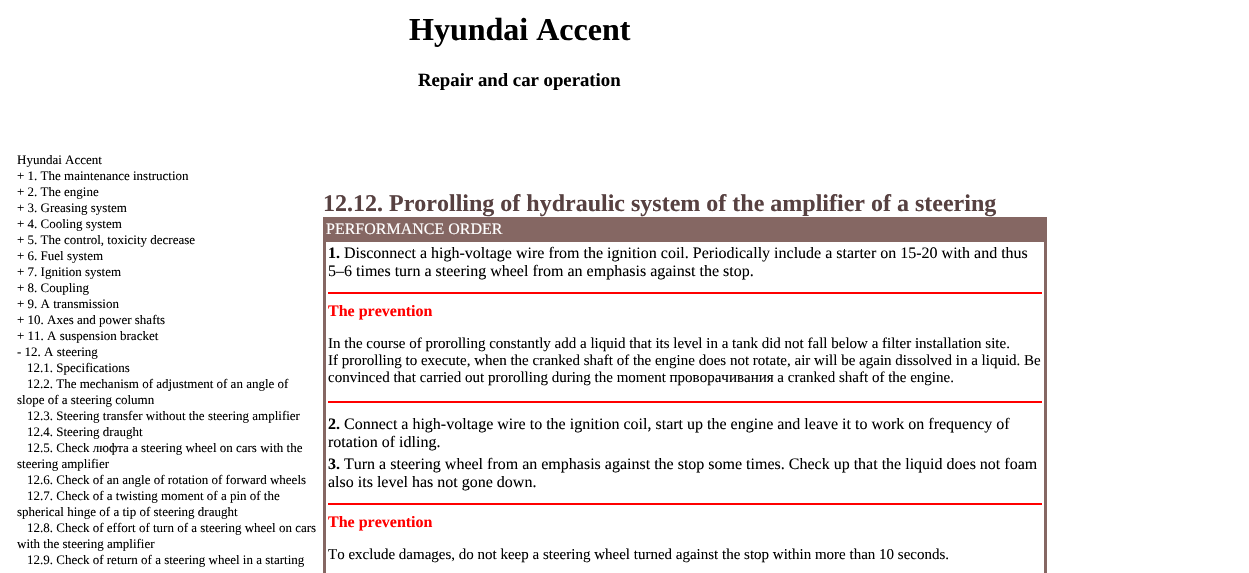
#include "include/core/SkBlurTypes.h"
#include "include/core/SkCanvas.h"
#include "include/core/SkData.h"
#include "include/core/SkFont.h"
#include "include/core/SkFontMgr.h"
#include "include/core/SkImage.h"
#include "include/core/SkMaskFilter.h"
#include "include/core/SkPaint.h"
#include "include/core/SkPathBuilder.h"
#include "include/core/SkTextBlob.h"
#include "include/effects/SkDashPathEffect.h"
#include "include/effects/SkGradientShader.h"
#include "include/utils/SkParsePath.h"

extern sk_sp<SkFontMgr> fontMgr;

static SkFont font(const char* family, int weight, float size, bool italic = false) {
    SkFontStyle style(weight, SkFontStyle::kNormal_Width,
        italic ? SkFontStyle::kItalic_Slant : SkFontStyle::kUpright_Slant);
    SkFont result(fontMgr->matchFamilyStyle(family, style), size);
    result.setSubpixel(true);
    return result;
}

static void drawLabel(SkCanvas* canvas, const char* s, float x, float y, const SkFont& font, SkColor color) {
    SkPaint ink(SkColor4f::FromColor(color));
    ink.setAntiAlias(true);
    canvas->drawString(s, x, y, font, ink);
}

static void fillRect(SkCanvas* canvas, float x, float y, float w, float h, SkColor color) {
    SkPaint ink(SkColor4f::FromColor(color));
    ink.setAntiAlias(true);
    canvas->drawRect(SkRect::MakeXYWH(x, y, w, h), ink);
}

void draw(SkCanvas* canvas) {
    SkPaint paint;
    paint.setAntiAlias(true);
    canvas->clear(0xFFFFFFFF);
    SkFont font1 = font("Liberation Serif", 700, 32);
    drawLabel(canvas, "Hyundai Accent", 409, 40, font1, 0xFF000000);
    SkFont font2 = font("Liberation Serif", 700, 18.75f);
    drawLabel(canvas, "Repair and car operation", 418, 86, font2, 0xFF000000);
    SkFont font3 = font("Liberation Serif", 400, 13);
    drawLabel(canvas, "Hyundai Accent", 17, 164, font3, 0xFF000000);
    drawLabel(canvas, "+ 1. The maintenance instruction", 17, 180, font3, 0xFF000000);
    drawLabel(canvas, "+ 2. The engine", 17, 196, font3, 0xFF000000);
    drawLabel(canvas, "+ 3. Greasing system", 17, 212, font3, 0xFF000000);
    drawLabel(canvas, "+ 4. Cooling system", 17, 228, font3, 0xFF000000);
    drawLabel(canvas, "+ 5. The control, toxicity decrease", 17, 244, font3, 0xFF000000);
    drawLabel(canvas, "+ 6. Fuel system", 17, 260, font3, 0xFF000000);
    drawLabel(canvas, "+ 7. Ignition system", 17, 276, font3, 0xFF000000);
    drawLabel(canvas, "+ 8. Coupling", 17, 292, font3, 0xFF000000);
    drawLabel(canvas, "+ 9. A transmission", 17, 308, font3, 0xFF000000);
    drawLabel(canvas, "+ 10. Axes and power shafts", 17, 324, font3, 0xFF000000);
    drawLabel(canvas, "+ 11. A suspension bracket", 17, 340, font3, 0xFF000000);
    drawLabel(canvas, "- 12. A steering", 17, 356, font3, 0xFF000000);
    drawLabel(canvas, "12.1. Specifications", 27, 372, font3, 0xFF000000);
    drawLabel(canvas, "12.2. The mechanism of adjustment of an angle of", 27, 388, font3, 0xFF000000);
    drawLabel(canvas, "slope of a steering column", 17, 404, font3, 0xFF000000);
    drawLabel(canvas, "12.3. Steering transfer without the steering amplifier", 27, 420, font3, 0xFF000000);
    drawLabel(canvas, "12.4. Steering draught", 27, 436, font3, 0xFF000000);
    drawLabel(canvas, "12.5. Check люфта a steering wheel on cars with the", 27, 452, font3, 0xFF000000);
    drawLabel(canvas, "steering amplifier", 17, 468, font3, 0xFF000000);
    drawLabel(canvas, "12.6. Check of an angle of rotation of forward wheels", 27, 484, font3, 0xFF000000);
    drawLabel(canvas, "12.7. Check of a twisting moment of a pin of the", 27, 500, font3, 0xFF000000);
    drawLabel(canvas, "spherical hinge of a tip of steering draught", 17, 516, font3, 0xFF000000);
    drawLabel(canvas, "12.8. Check of effort of turn of a steering wheel on cars", 27, 532, font3, 0xFF000000);
    drawLabel(canvas, "with the steering amplifier", 17, 548, font3, 0xFF000000);
    drawLabel(canvas, "12.9. Check of return of a steering wheel in a starting", 27, 564, font3, 0xFF000000);
    SkFont font4 = font("Liberation Serif", 700, 24);
    drawLabel(canvas, "12.12. Prorolling of hydraulic system of the amplifier of a steering", 323, 211, font4, 0xFF574141);
    fillRect(canvas, 323, 217, 724, 356, 0xFF856763);
    SkFont font5 = font("Liberation Serif", 400, 16);
    drawLabel(canvas, "PERFORMANCE ORDER", 326, 234, font5, 0xFFFFFFFF);
    fillRect(canvas, 326, 242, 718, 331, 0xFFFFFFFF);
    SkFont font6 = font("Liberation Serif", 700, 16);
    drawLabel(canvas, "1.", 328, 258, font6, 0xFF000000);
    drawLabel(canvas, "Disconnect a high-voltage wire from the ignition coil. Periodically include a starter on 15-20 with and thus", 344, 258, font5, 0xFF000000);
    drawLabel(canvas, "5–6 times turn a steering wheel from an emphasis against the stop.", 328, 276, font5, 0xFF000000);
    fillRect(canvas, 328, 292, 714, 2, 0xFFFF0000);
    drawLabel(canvas, "The prevention", 328, 316, font6, 0xFFFF0000);
    SkFont font7 = font("Liberation Serif", 400, 15);
    drawLabel(canvas, "In the course of prorolling constantly add a liquid that its level in a tank did not fall below a filter installation site.", 328, 348, font7, 0xFF000000);
    drawLabel(canvas, "If prorolling to execute, when the cranked shaft of the engine does not rotate, air will be again dissolved in a liquid. Be", 328, 365, font7, 0xFF000000);
    drawLabel(canvas, "convinced that carried out prorolling during the moment проворачивания a cranked shaft of the engine.", 328, 382, font7, 0xFF000000);
    fillRect(canvas, 328, 401, 714, 2, 0xFFFF0000);
    drawLabel(canvas, "2.", 328, 429, font6, 0xFF000000);
    drawLabel(canvas, "Connect a high-voltage wire to the ignition coil, start up the engine and leave it to work on frequency of", 344, 429, font5, 0xFF000000);
    drawLabel(canvas, "rotation of idling.", 328, 447, font5, 0xFF000000);
    drawLabel(canvas, "3.", 328, 469, font6, 0xFF000000);
    drawLabel(canvas, "Turn a steering wheel from an emphasis against the stop some times. Check up that the liquid does not foam", 344, 469, font5, 0xFF000000);
    drawLabel(canvas, "also its level has not gone down.", 328, 487, font5, 0xFF000000);
    fillRect(canvas, 328, 503, 714, 2, 0xFFFF0000);
    drawLabel(canvas, "The prevention", 328, 527, font6, 0xFFFF0000);
    drawLabel(canvas, "To exclude damages, do not keep a steering wheel turned against the stop within more than 10 seconds.", 328, 559, font7, 0xFF000000);
}
